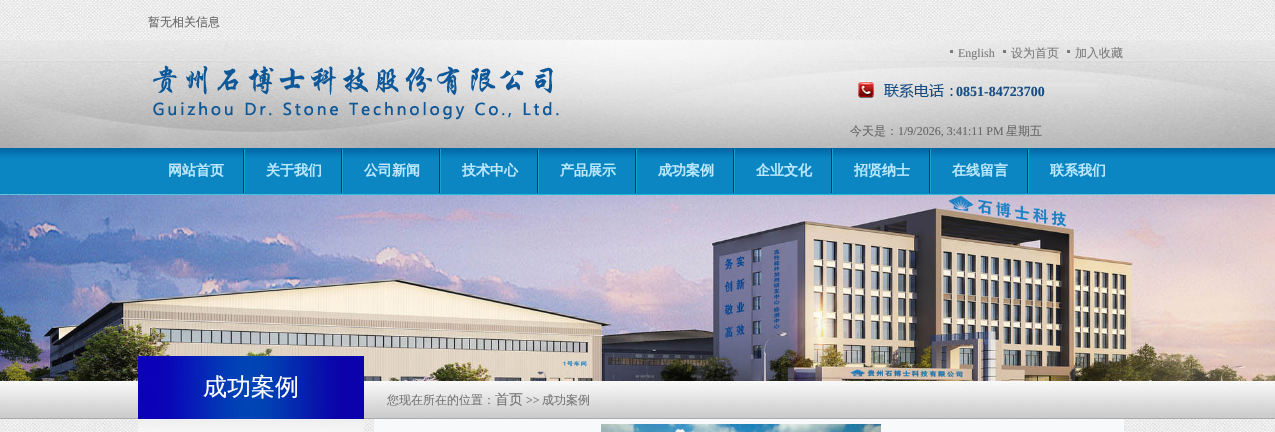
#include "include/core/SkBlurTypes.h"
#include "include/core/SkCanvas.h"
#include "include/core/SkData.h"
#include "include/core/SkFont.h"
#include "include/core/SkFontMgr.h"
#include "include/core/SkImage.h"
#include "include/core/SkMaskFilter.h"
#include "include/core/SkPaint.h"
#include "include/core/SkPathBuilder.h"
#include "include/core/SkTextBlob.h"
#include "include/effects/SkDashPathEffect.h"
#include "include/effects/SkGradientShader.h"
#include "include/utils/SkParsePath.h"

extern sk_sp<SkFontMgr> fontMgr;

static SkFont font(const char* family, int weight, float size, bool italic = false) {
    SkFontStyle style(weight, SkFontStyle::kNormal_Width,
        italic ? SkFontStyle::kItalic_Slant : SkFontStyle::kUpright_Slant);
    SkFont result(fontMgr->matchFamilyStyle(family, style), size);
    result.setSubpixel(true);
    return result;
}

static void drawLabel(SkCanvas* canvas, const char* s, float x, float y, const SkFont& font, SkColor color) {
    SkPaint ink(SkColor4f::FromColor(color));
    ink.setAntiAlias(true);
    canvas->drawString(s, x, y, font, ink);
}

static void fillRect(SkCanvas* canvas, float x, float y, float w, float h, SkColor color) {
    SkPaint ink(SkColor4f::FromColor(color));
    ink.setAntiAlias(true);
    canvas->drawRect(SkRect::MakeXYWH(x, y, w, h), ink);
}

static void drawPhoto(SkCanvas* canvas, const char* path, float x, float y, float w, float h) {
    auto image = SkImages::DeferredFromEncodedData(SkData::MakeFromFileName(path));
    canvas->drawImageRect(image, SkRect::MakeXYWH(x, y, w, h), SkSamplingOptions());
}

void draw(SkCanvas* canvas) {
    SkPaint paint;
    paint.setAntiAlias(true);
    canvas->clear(0xFFFFFFFF);
    drawPhoto(canvas, "assets/img1.png", 0, 0, 1275, 432);
    SkFont font1 = font("WenQuanYi Zen Hei", 500, 12);
    drawLabel(canvas, "暂无相关信息", 148, 26, font1, 0xFF666666);
    drawPhoto(canvas, "assets/img2.png", 0, 40, 1275, 155);
    drawPhoto(canvas, "assets/img3.png", 153, 65, 406, 55);
    SkFont font2 = font("Liberation Serif", 400, 12);
    drawLabel(canvas, "English", 958, 57, font2, 0xFF7B7A7A);
    fillRect(canvas, 950, 50, 3, 3, 0xFF7B7A7A);
    drawLabel(canvas, "设为首页", 1011, 57, font1, 0xFF7B7A7A);
    fillRect(canvas, 1003, 50, 3, 3, 0xFF7B7A7A);
    drawLabel(canvas, "加入收藏", 1075, 57, font1, 0xFF7B7A7A);
    fillRect(canvas, 1067, 50, 3, 3, 0xFF7B7A7A);
    drawPhoto(canvas, "assets/img4.png", 858, 81, 240, 17);
    SkFont font3 = font("Liberation Serif", 700, 14);
    drawLabel(canvas, "0851-84723700", 956, 96, font3, 0xFF184D83);
    drawLabel(canvas, "今天是：", 850, 135, font1, 0xFF666666);
    drawLabel(canvas, "1/9/2026, 3:41:11 PM", 898, 135, font2, 0xFF666666);
    drawLabel(canvas, "星期五", 1006, 135, font1, 0xFF666666);
    drawPhoto(canvas, "assets/img5.png", 0, 148, 1275, 46);
    drawPhoto(canvas, "assets/img6.png", 243, 149, 2, 44);
    SkFont font4 = font("WenQuanYi Zen Hei", 700, 14);
    drawLabel(canvas, "网站首页", 168, 175, font4, 0xFFBCE9FF);
    drawPhoto(canvas, "assets/img6.png", 341, 149, 2, 44);
    drawLabel(canvas, "关于我们", 266, 175, font4, 0xFFBCE9FF);
    drawPhoto(canvas, "assets/img6.png", 439, 149, 2, 44);
    drawLabel(canvas, "公司新闻", 364, 175, font4, 0xFFBCE9FF);
    drawPhoto(canvas, "assets/img6.png", 537, 149, 2, 44);
    drawLabel(canvas, "技术中心", 462, 175, font4, 0xFFBCE9FF);
    drawPhoto(canvas, "assets/img6.png", 635, 149, 2, 44);
    drawLabel(canvas, "产品展示", 560, 175, font4, 0xFFBCE9FF);
    drawPhoto(canvas, "assets/img6.png", 733, 149, 2, 44);
    drawLabel(canvas, "成功案例", 658, 175, font4, 0xFFBCE9FF);
    drawPhoto(canvas, "assets/img6.png", 831, 149, 2, 44);
    drawLabel(canvas, "企业文化", 756, 175, font4, 0xFFBCE9FF);
    drawPhoto(canvas, "assets/img6.png", 929, 149, 2, 44);
    drawLabel(canvas, "招贤纳士", 854, 175, font4, 0xFFBCE9FF);
    drawPhoto(canvas, "assets/img6.png", 1027, 149, 2, 44);
    drawLabel(canvas, "在线留言", 952, 175, font4, 0xFFBCE9FF);
    drawLabel(canvas, "联系我们", 1050, 175, font4, 0xFFBCE9FF);
    drawPhoto(canvas, "assets/img7.png", 0, 195, 1275, 186);
    drawPhoto(canvas, "assets/img11.png", 0, 381, 1275, 38);
    drawPhoto(canvas, "assets/img8.png", 138, 356, 226, 63);
    SkFont font5 = font("WenQuanYi Zen Hei", 500, 24);
    drawLabel(canvas, "成功案例", 203, 395, font5, 0xFFFFFFFF);
    drawPhoto(canvas, "assets/img9.png", 138, 419, 226, 13);
    fillRect(canvas, 374, 419, 750, 13, 0xFFF8F9FA);
    drawPhoto(canvas, "assets/img10.png", 601, 424, 280, 8);
    drawLabel(canvas, "您现在所在的位置：", 387, 404, font1, 0xFF757474);
    SkFont font6 = font("WenQuanYi Zen Hei", 500, 14);
    drawLabel(canvas, "首页", 495, 404, font6, 0xFF757474);
    drawLabel(canvas, ">>", 526, 404, font2, 0xFF757474);
    drawLabel(canvas, "成功案例", 542, 404, font1, 0xFF757474);
}
